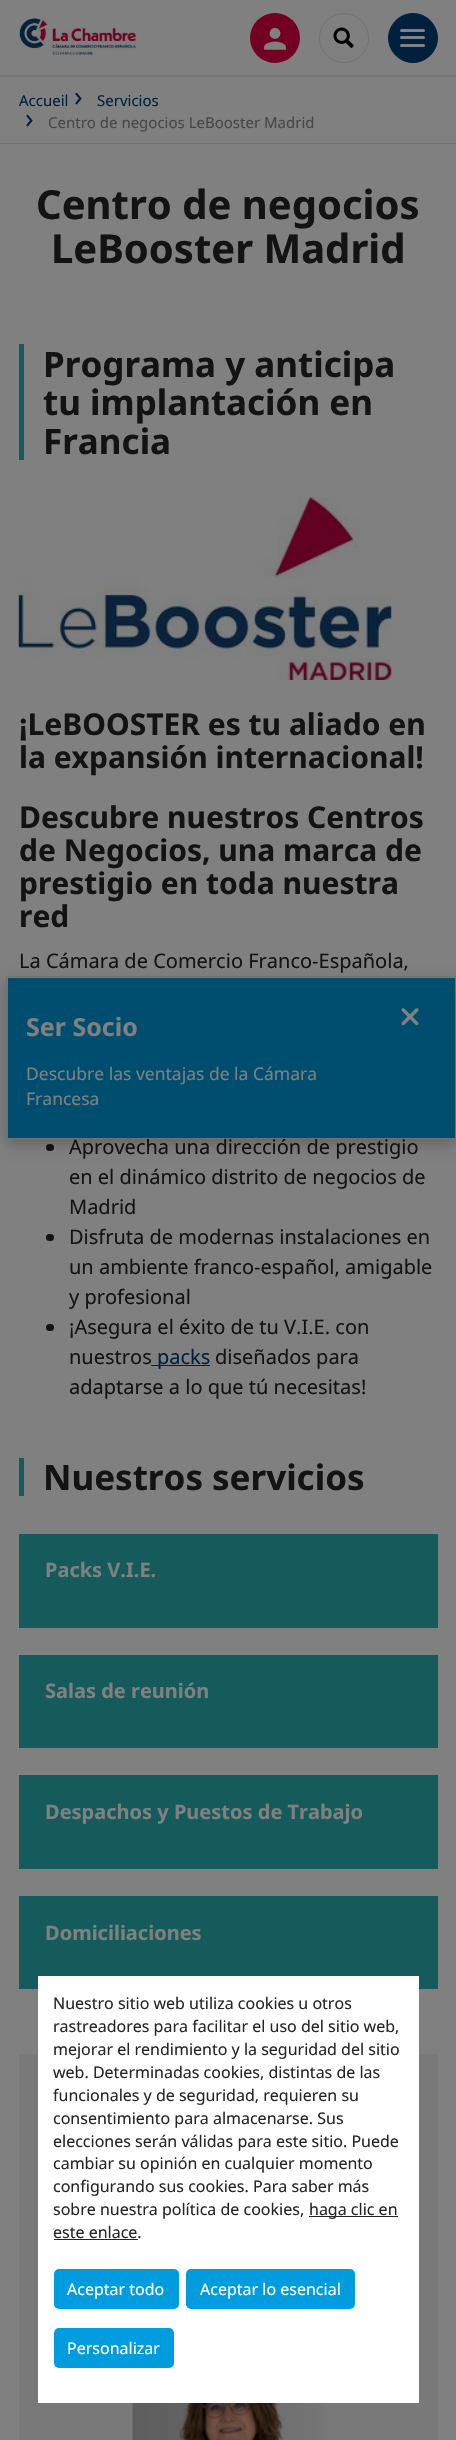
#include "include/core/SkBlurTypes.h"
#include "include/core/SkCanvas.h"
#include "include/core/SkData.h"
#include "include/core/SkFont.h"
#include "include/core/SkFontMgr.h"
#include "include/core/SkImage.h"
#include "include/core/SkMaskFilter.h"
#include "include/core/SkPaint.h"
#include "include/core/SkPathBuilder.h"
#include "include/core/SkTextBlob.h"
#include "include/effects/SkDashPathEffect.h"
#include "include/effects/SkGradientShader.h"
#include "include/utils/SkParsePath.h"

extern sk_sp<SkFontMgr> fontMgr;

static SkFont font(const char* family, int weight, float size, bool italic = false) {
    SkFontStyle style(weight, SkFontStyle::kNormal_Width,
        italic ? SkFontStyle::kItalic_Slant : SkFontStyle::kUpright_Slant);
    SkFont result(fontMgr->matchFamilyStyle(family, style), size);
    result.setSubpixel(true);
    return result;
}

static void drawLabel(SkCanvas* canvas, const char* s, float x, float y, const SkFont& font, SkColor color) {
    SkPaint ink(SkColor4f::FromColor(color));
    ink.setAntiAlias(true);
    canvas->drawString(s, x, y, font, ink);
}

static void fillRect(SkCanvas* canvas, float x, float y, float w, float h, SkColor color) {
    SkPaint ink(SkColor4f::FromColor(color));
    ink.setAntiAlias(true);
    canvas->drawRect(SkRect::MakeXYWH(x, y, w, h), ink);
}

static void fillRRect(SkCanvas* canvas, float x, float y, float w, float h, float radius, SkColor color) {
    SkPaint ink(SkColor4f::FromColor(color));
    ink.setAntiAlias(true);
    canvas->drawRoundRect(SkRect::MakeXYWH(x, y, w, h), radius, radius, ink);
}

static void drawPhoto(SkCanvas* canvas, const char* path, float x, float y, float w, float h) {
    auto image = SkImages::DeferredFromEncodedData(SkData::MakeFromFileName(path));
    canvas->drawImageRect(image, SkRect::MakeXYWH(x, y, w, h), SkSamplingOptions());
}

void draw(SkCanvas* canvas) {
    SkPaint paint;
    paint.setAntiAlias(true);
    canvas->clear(0xFF808080);
    fillRect(canvas, 0, 75, 456, 2, 0xFF797979);
    drawPhoto(canvas, "assets/img1.png", 19, 18, 118, 37);
    paint.setColor(0xFF730023);
    canvas->drawCircle(275, 38, 25, paint);
    drawPhoto(canvas, "assets/img2.png", 264, 27, 22, 23);
    paint.setStroke(true);
    paint.setStrokeWidth(1);
    paint.setColor(0xFF727272);
    canvas->drawCircle(344, 38, 24.5f, paint);
    drawPhoto(canvas, "assets/img3.png", 333, 27, 21, 22);
    paint.setStroke(false);
    paint.setColor(0xFF00203D);
    canvas->drawCircle(413, 38, 24.5f, paint);
    paint.setStroke(true);
    canvas->drawCircle(413, 38, 24.5f, paint);
    fillRRect(canvas, 400, 29, 25, 3, 1.5f, 0xFF808080);
    fillRRect(canvas, 400, 36, 25, 3, 1.5f, 0xFF808080);
    fillRRect(canvas, 400, 44, 25, 3, 1.5f, 0xFF808080);
    fillRect(canvas, 0, 143, 456, 1, 0xFF727272);
    SkFont font1 = font("Noto Sans", 400, 15);
    drawLabel(canvas, "Accueil", 19, 106, font1, 0xFF00203D);
    SkFont font2 = font("Noto Sans", 400, 28);
    drawLabel(canvas, "›", 74, 106, font2, 0xFF00203D);
    drawLabel(canvas, "Servicios", 97, 106, font1, 0xFF00203D);
    drawLabel(canvas, "›", 25, 128, font2, 0xFF00203D);
    drawLabel(canvas, "Centro de negocios LeBooster Madrid", 48, 128, font1, 0xFF474747);
    SkFont font3 = font("Noto Sans", 700, 40);
    drawLabel(canvas, "Centro de negocios", 36, 219, font3, 0xFF131313);
    drawLabel(canvas, "LeBooster Madrid", 51, 263, font3, 0xFF131313);
    fillRect(canvas, 19, 344, 5, 116, 0xFF165B5C);
    SkFont font4 = font("Noto Sans", 700, 35);
    drawLabel(canvas, "Programa y anticipa", 43, 377, font4, 0xFF131313);
    drawLabel(canvas, "tu implantación en", 43, 415, font4, 0xFF131313);
    drawLabel(canvas, "Francia", 43, 454, font4, 0xFF131313);
    drawPhoto(canvas, "assets/img4.png", 18, 497, 374, 183);
    SkFont font5 = font("Noto Sans", 700, 30);
    drawLabel(canvas, "¡LeBOOSTER es tu aliado en", 19, 735, font5, 0xFF131313);
    drawLabel(canvas, "la expansión internacional!", 19, 768, font5, 0xFF131313);
    drawLabel(canvas, "Descubre nuestros Centros", 19, 828, font5, 0xFF131313);
    drawLabel(canvas, "de Negocios, una marca de", 19, 861, font5, 0xFF131313);
    drawLabel(canvas, "prestigio en toda nuestra", 19, 894, font5, 0xFF131313);
    drawLabel(canvas, "red", 19, 927, font5, 0xFF131313);
    SkFont font6 = font("Noto Sans", 400, 20);
    drawLabel(canvas, "La Cámara de Comercio Franco-Española,", 19, 968, font6, 0xFF131313);
    fillRRect(canvas, 46, 1144, 8, 7, 3.5f, 0xFF131313);
    drawLabel(canvas, "Aprovecha una dirección de prestigio", 69, 1154, font6, 0xFF131313);
    drawLabel(canvas, "en el dinámico distrito de negocios de", 69, 1184, font6, 0xFF131313);
    drawLabel(canvas, "Madrid", 69, 1214, font6, 0xFF131313);
    fillRRect(canvas, 46, 1234, 8, 7, 3.5f, 0xFF131313);
    drawLabel(canvas, "Disfruta de modernas instalaciones en", 69, 1244, font6, 0xFF131313);
    drawLabel(canvas, "un ambiente franco-español, amigable", 69, 1274, font6, 0xFF131313);
    drawLabel(canvas, "y profesional", 69, 1304, font6, 0xFF131313);
    fillRRect(canvas, 46, 1324, 8, 7, 3.5f, 0xFF131313);
    drawLabel(canvas, "¡Asegura el éxito de tu V.I.E. con", 69, 1334, font6, 0xFF131313);
    drawLabel(canvas, "nuestros", 69, 1364, font6, 0xFF131313);
    fillRect(canvas, 151, 1365, 59, 1, 0xFF00203D);
    drawLabel(canvas, "packs", 157, 1364, font6, 0xFF00203D);
    drawLabel(canvas, "diseñados para", 215, 1364, font6, 0xFF131313);
    drawLabel(canvas, "adaptarse a lo que tú necesitas!", 69, 1394, font6, 0xFF131313);
    fillRect(canvas, 19, 1458, 5, 38, 0xFF165B5C);
    drawLabel(canvas, "Nuestros servicios", 43, 1490, font4, 0xFF131313);
    fillRect(canvas, 19, 1534, 419, 94, 0xFF165B5C);
    SkFont font7 = font("Noto Sans", 700, 20);
    drawLabel(canvas, "Packs V.I.E.", 45, 1577, font7, 0xFF808080);
    fillRect(canvas, 19, 1655, 419, 93, 0xFF165B5C);
    drawLabel(canvas, "Salas de reunión", 45, 1698, font7, 0xFF808080);
    fillRect(canvas, 19, 1775, 419, 94, 0xFF165B5C);
    drawLabel(canvas, "Despachos y Puestos de Trabajo", 45, 1819, font7, 0xFF808080);
    fillRect(canvas, 19, 1896, 419, 93, 0xFF165B5C);
    drawLabel(canvas, "Domiciliaciones", 45, 1940, font7, 0xFF808080);
    fillRect(canvas, 19, 2054, 419, 386, 0xFF797979);
    drawPhoto(canvas, "assets/img5.png", 132, 2403, 192, 37);
    paint.setStroke(false);
    paint.setColor(0x33000000);
    paint.setMaskFilter(SkMaskFilter::MakeBlur(kNormal_SkBlurStyle, 6));
    canvas->drawRect(SkRect::MakeXYWH(6, 983, 450, 162), paint);
    paint.setMaskFilter(nullptr);
    fillRect(canvas, 8, 978, 447, 160, 0xFF004E6F);
    paint.setStroke(true);
    paint.setColor(0xFF727272);
    canvas->drawRect(SkRect::MakeXYWH(6.5f, 976.5f, 449, 162), paint);
    SkFont font8 = font("Noto Sans", 700, 25);
    drawLabel(canvas, "Ser Socio", 26, 1036, font8, 0xFF808080);
    drawPhoto(canvas, "assets/img6.png", 401, 1008, 18, 18);
    SkFont font9 = font("Noto Sans", 400, 17.5f);
    drawLabel(canvas, "Descubre las ventajas de la Cámara", 26, 1080, font9, 0xFF808080);
    drawLabel(canvas, "Francesa", 26, 1105, font9, 0xFF808080);
    fillRect(canvas, 38, 1976, 381, 427, 0xFFFFFFFF);
    SkFont font10 = font("Noto Sans", 400, 16);
    drawLabel(canvas, "Nuestro sitio web utiliza cookies u otros", 53, 2009, font10, 0xFF252525);
    drawLabel(canvas, "rastreadores para facilitar el uso del sitio web,", 53, 2032, font10, 0xFF252525);
    drawLabel(canvas, "mejorar el rendimiento y la seguridad del sitio", 53, 2055, font10, 0xFF252525);
    drawLabel(canvas, "web. Determinadas cookies, distintas de las", 53, 2078, font10, 0xFF252525);
    drawLabel(canvas, "funcionales y de seguridad, requieren su", 53, 2101, font10, 0xFF252525);
    drawLabel(canvas, "consentimiento para almacenarse. Sus", 53, 2124, font10, 0xFF252525);
    drawLabel(canvas, "elecciones serán válidas para este sitio. Puede", 53, 2147, font10, 0xFF252525);
    drawLabel(canvas, "cambiar su opinión en cualquier momento", 53, 2169, font10, 0xFF252525);
    drawLabel(canvas, "configurando sus cookies. Para saber más", 53, 2192, font10, 0xFF252525);
    drawLabel(canvas, "sobre nuestra política de cookies,", 53, 2215, font10, 0xFF252525);
    fillRect(canvas, 309, 2216, 89, 1, 0xFF252525);
    drawLabel(canvas, "haga clic en", 309, 2215, font10, 0xFF252525);
    drawLabel(canvas, "este enlace.", 53, 2238, font10, 0xFF252525);
    fillRect(canvas, 54, 2239, 84, 1, 0xFF252525);
    fillRRect(canvas, 54, 2269, 125, 40, 5, 0xFF009CDE);
    drawLabel(canvas, "Aceptar todo", 67, 2295, font10, 0xFFFFFFFF);
    fillRRect(canvas, 186, 2269, 169, 40, 5, 0xFF009CDE);
    drawLabel(canvas, "Aceptar lo esencial", 200, 2295, font10, 0xFFFFFFFF);
    fillRRect(canvas, 54, 2328, 120, 40, 5, 0xFF009CDE);
    drawLabel(canvas, "Personalizar", 67, 2354, font10, 0xFFFFFFFF);
}
